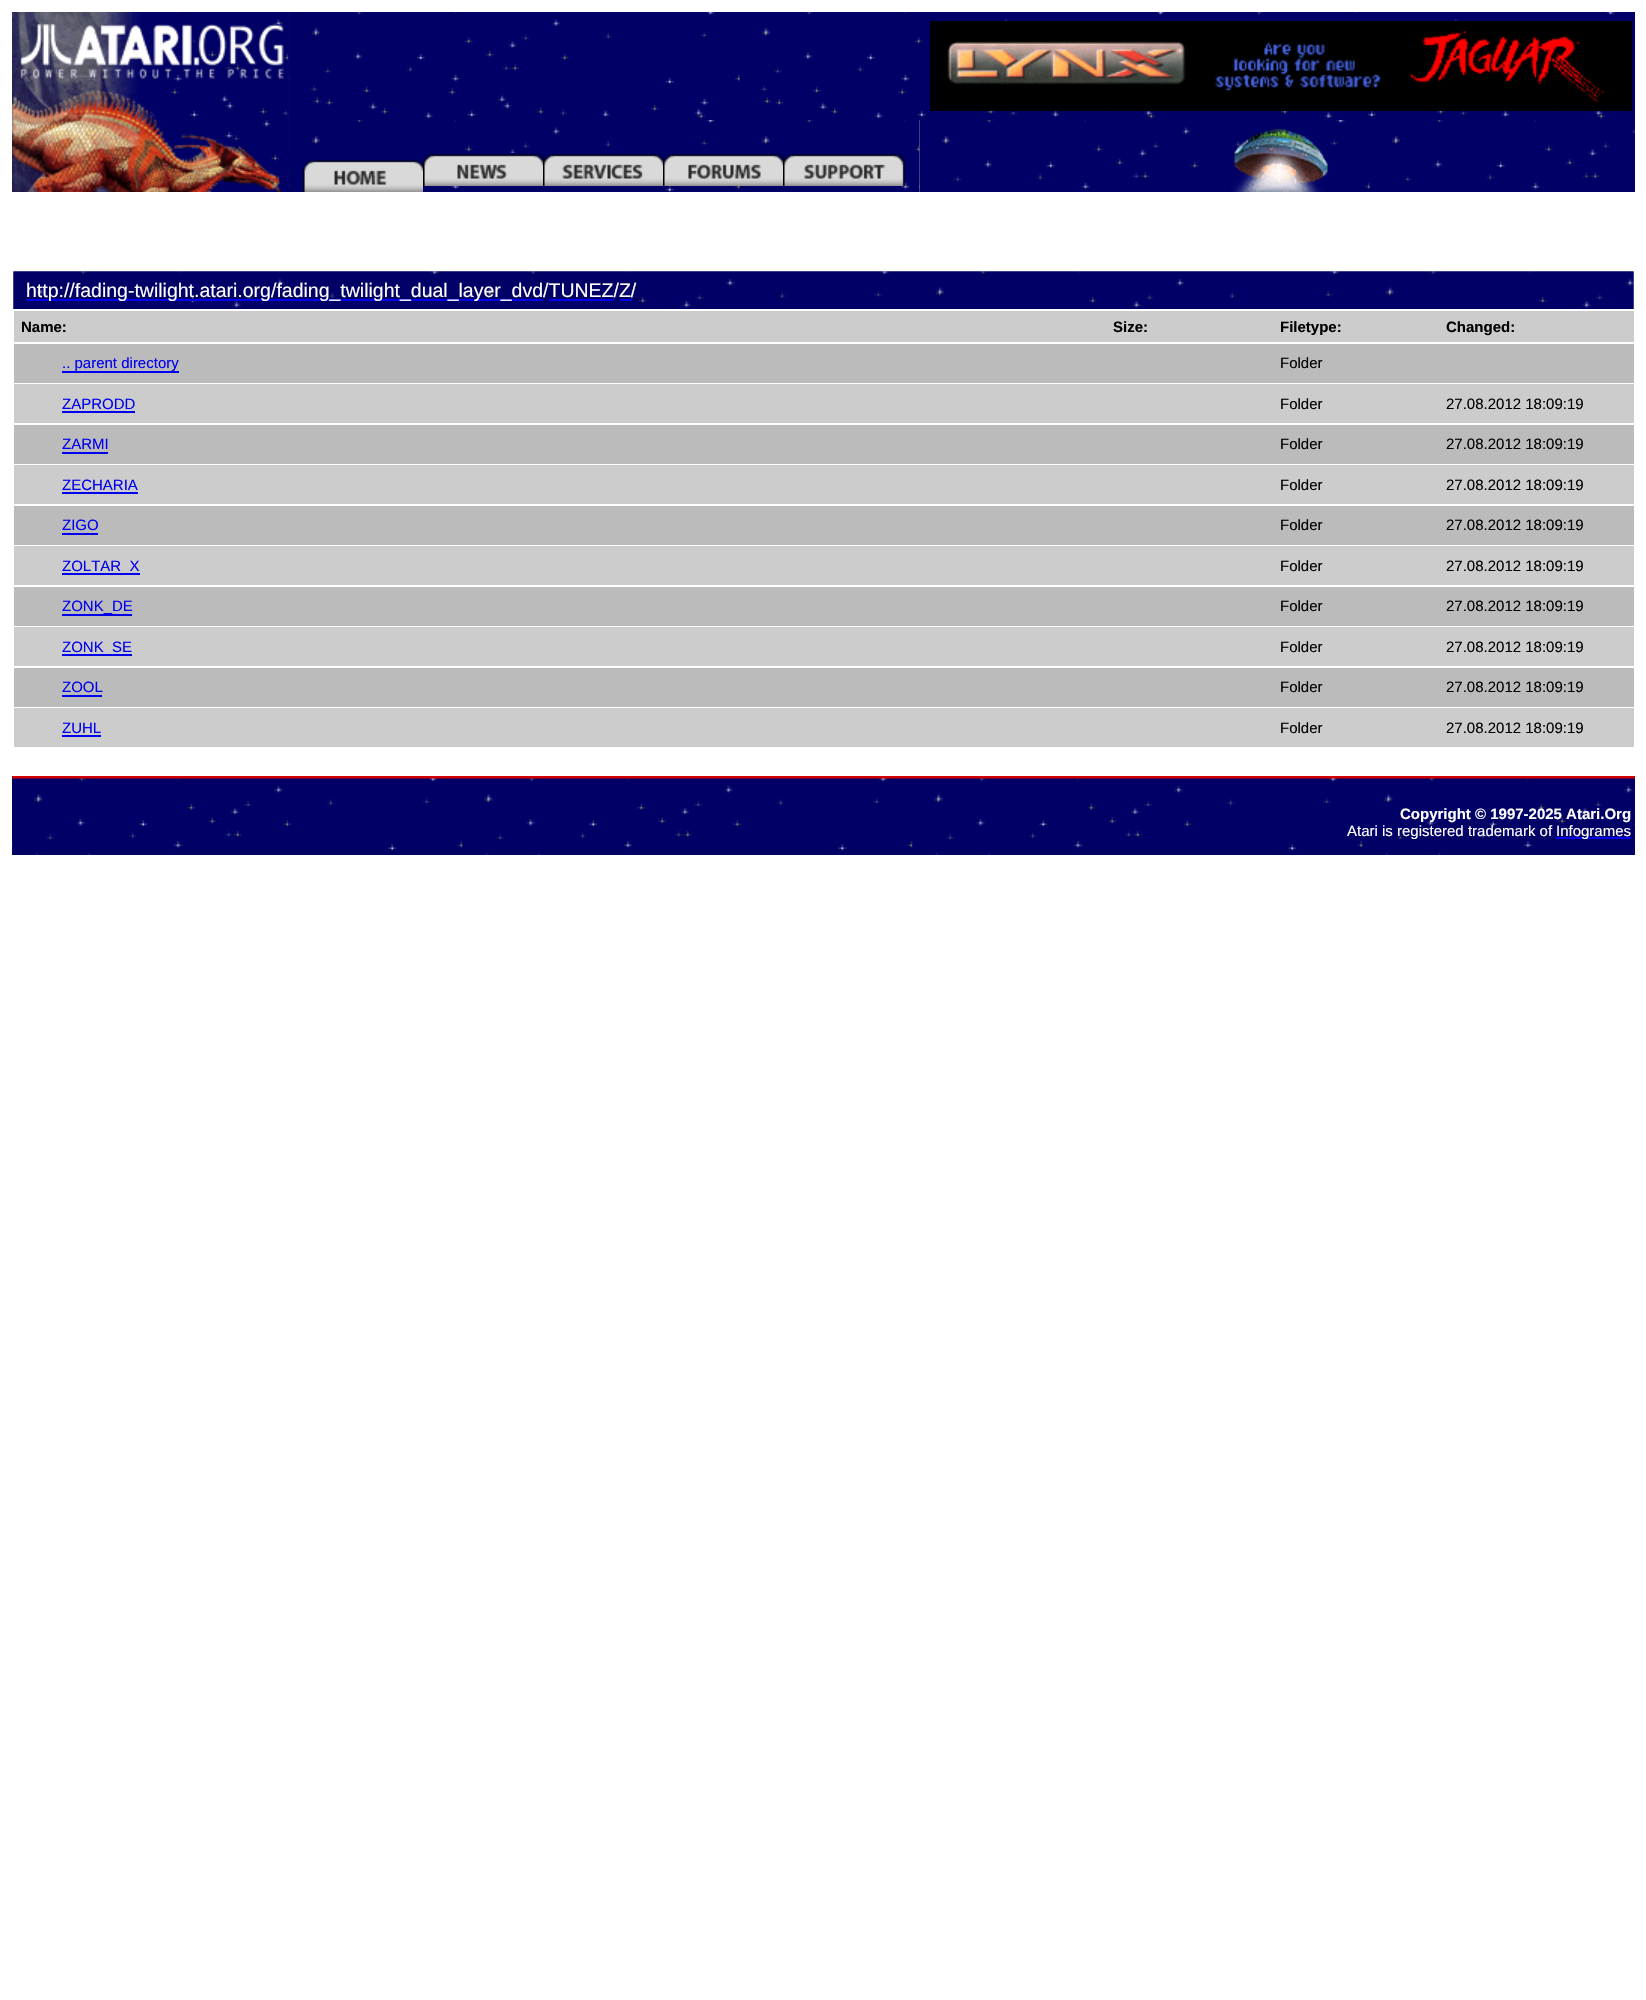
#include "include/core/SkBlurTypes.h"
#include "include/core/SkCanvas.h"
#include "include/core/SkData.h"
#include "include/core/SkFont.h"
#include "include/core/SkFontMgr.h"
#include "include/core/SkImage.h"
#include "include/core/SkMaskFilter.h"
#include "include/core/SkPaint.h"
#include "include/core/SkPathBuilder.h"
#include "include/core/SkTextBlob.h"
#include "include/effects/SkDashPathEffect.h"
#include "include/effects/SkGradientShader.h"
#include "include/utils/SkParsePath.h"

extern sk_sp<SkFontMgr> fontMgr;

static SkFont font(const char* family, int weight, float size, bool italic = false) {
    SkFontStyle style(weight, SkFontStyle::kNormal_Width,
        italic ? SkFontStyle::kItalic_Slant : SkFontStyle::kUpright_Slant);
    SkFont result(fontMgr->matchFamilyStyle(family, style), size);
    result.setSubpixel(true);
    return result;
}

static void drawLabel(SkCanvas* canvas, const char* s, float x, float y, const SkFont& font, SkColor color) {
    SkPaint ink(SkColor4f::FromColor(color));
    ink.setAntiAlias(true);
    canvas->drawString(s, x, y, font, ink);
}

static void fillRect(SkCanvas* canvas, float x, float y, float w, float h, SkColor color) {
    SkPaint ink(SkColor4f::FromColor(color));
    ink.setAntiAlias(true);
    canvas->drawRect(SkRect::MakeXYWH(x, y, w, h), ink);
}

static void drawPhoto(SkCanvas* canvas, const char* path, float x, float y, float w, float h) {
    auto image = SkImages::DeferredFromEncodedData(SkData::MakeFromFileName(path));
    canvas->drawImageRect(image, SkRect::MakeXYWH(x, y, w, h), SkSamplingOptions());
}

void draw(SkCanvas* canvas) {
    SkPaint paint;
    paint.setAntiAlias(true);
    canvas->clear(0xFFFFFFFF);
    fillRect(canvas, 210, 12, 80, 180, 0xFF000066);
    drawPhoto(canvas, "assets/img1.png", 138, 12, 152, 176);
    drawPhoto(canvas, "assets/img3.png", 289, 12, 1346, 108);
    drawPhoto(canvas, "assets/img5.png", 289, 120, 631, 72);
    drawPhoto(canvas, "assets/img2.png", 12, 12, 278, 180);
    drawPhoto(canvas, "assets/img4.png", 930, 21, 702, 90);
    drawPhoto(canvas, "assets/img6.png", 303, 160, 120, 32);
    drawPhoto(canvas, "assets/img7.png", 423, 153, 120, 33);
    drawPhoto(canvas, "assets/img8.png", 543, 153, 120, 33);
    drawPhoto(canvas, "assets/img9.png", 663, 153, 120, 33);
    drawPhoto(canvas, "assets/img10.png", 783, 153, 122, 33);
    drawPhoto(canvas, "assets/img11.png", 919, 120, 716, 72);
    drawPhoto(canvas, "assets/img12.png", 1231, 128, 97, 64);
    drawPhoto(canvas, "assets/img13.png", 13, 271, 1621, 38);
    fillRect(canvas, 27, 299, 516, 2, 0xFF0000EE);
    SkFont font1 = font("Liberation Sans", 400, 19.5f);
    drawLabel(canvas, "http://fading-twilight.atari.org/fading_twilight_dual_layer_dvd/TUNEZ/Z/", 26, 297, font1, 0xFFFFFFFF);
    fillRect(canvas, 549, 299, 65, 2, 0xFF0000EE);
    fillRect(canvas, 620, 299, 12, 2, 0xFF0000EE);
    fillRect(canvas, 14, 311, 1620, 31, 0xFFCCCCCC);
    SkFont font2 = font("Liberation Sans", 700, 15);
    drawLabel(canvas, "Name:", 21, 332, font2, 0xFF000000);
    drawLabel(canvas, "Size:", 1113, 332, font2, 0xFF000000);
    drawLabel(canvas, "Filetype:", 1280, 332, font2, 0xFF000000);
    drawLabel(canvas, "Changed:", 1446, 332, font2, 0xFF000000);
    fillRect(canvas, 14, 344, 1620, 39, 0xFFBBBBBB);
    fillRect(canvas, 62, 371, 117, 2, 0xFF0000EE);
    SkFont font3 = font("Liberation Sans", 400, 15);
    drawLabel(canvas, ".. parent directory", 62, 368, font3, 0xFF0000EE);
    drawLabel(canvas, "Folder", 1280, 368, font3, 0xFF000000);
    fillRect(canvas, 14, 384, 1620, 39, 0xFFCCCCCC);
    drawLabel(canvas, "ZAPRODD", 62, 409, font3, 0xFF0000EE);
    fillRect(canvas, 62, 411, 73, 2, 0xFF0000EE);
    drawLabel(canvas, "Folder", 1280, 409, font3, 0xFF000000);
    drawLabel(canvas, "27.08.2012 18:09:19", 1446, 409, font3, 0xFF000000);
    fillRect(canvas, 14, 425, 1620, 39, 0xFFBBBBBB);
    drawLabel(canvas, "ZARMI", 62, 449, font3, 0xFF0000EE);
    fillRect(canvas, 62, 452, 46, 2, 0xFF0000EE);
    drawLabel(canvas, "Folder", 1280, 449, font3, 0xFF000000);
    drawLabel(canvas, "27.08.2012 18:09:19", 1446, 449, font3, 0xFF000000);
    fillRect(canvas, 14, 465, 1620, 39, 0xFFCCCCCC);
    drawLabel(canvas, "ZECHARIA", 62, 490, font3, 0xFF0000EE);
    fillRect(canvas, 62, 492, 76, 2, 0xFF0000EE);
    drawLabel(canvas, "Folder", 1280, 490, font3, 0xFF000000);
    drawLabel(canvas, "27.08.2012 18:09:19", 1446, 490, font3, 0xFF000000);
    fillRect(canvas, 14, 506, 1620, 39, 0xFFBBBBBB);
    drawLabel(canvas, "ZIGO", 62, 530, font3, 0xFF0000EE);
    fillRect(canvas, 62, 533, 36, 2, 0xFF0000EE);
    drawLabel(canvas, "Folder", 1280, 530, font3, 0xFF000000);
    drawLabel(canvas, "27.08.2012 18:09:19", 1446, 530, font3, 0xFF000000);
    fillRect(canvas, 14, 546, 1620, 39, 0xFFCCCCCC);
    fillRect(canvas, 62, 573, 78, 2, 0xFF0000EE);
    drawLabel(canvas, "ZOLTAR_X", 62, 571, font3, 0xFF0000EE);
    drawLabel(canvas, "Folder", 1280, 571, font3, 0xFF000000);
    drawLabel(canvas, "27.08.2012 18:09:19", 1446, 571, font3, 0xFF000000);
    fillRect(canvas, 14, 587, 1620, 39, 0xFFBBBBBB);
    drawLabel(canvas, "ZONK_DE", 62, 611, font3, 0xFF0000EE);
    fillRect(canvas, 62, 614, 70, 2, 0xFF0000EE);
    drawLabel(canvas, "Folder", 1280, 611, font3, 0xFF000000);
    drawLabel(canvas, "27.08.2012 18:09:19", 1446, 611, font3, 0xFF000000);
    fillRect(canvas, 14, 627, 1620, 39, 0xFFCCCCCC);
    fillRect(canvas, 62, 654, 70, 2, 0xFF0000EE);
    drawLabel(canvas, "ZONK_SE", 62, 652, font3, 0xFF0000EE);
    drawLabel(canvas, "Folder", 1280, 652, font3, 0xFF000000);
    drawLabel(canvas, "27.08.2012 18:09:19", 1446, 652, font3, 0xFF000000);
    fillRect(canvas, 14, 668, 1620, 39, 0xFFBBBBBB);
    drawLabel(canvas, "ZOOL", 62, 692, font3, 0xFF0000EE);
    fillRect(canvas, 62, 695, 40, 2, 0xFF0000EE);
    drawLabel(canvas, "Folder", 1280, 692, font3, 0xFF000000);
    drawLabel(canvas, "27.08.2012 18:09:19", 1446, 692, font3, 0xFF000000);
    fillRect(canvas, 14, 708, 1620, 39, 0xFFCCCCCC);
    drawLabel(canvas, "ZUHL", 62, 733, font3, 0xFF0000EE);
    fillRect(canvas, 62, 735, 39, 2, 0xFF0000EE);
    drawLabel(canvas, "Folder", 1280, 733, font3, 0xFF000000);
    drawLabel(canvas, "27.08.2012 18:09:19", 1446, 733, font3, 0xFF000000);
    fillRect(canvas, 12, 776, 1623, 3, 0xFFD00000);
    drawPhoto(canvas, "assets/img14.png", 12, 778, 1623, 77);
    drawLabel(canvas, "Copyright © 1997-2025 Atari.Org", 1400, 819, font2, 0xFFFFFFFF);
    drawLabel(canvas, "Atari is registered trademark of", 1347, 836, font3, 0xFFFFFFFF);
    fillRect(canvas, 1556, 837, 75, 2, 0xFF0000EE);
    drawLabel(canvas, "Infogrames", 1556, 836, font3, 0xFFFFFFFF);
}
